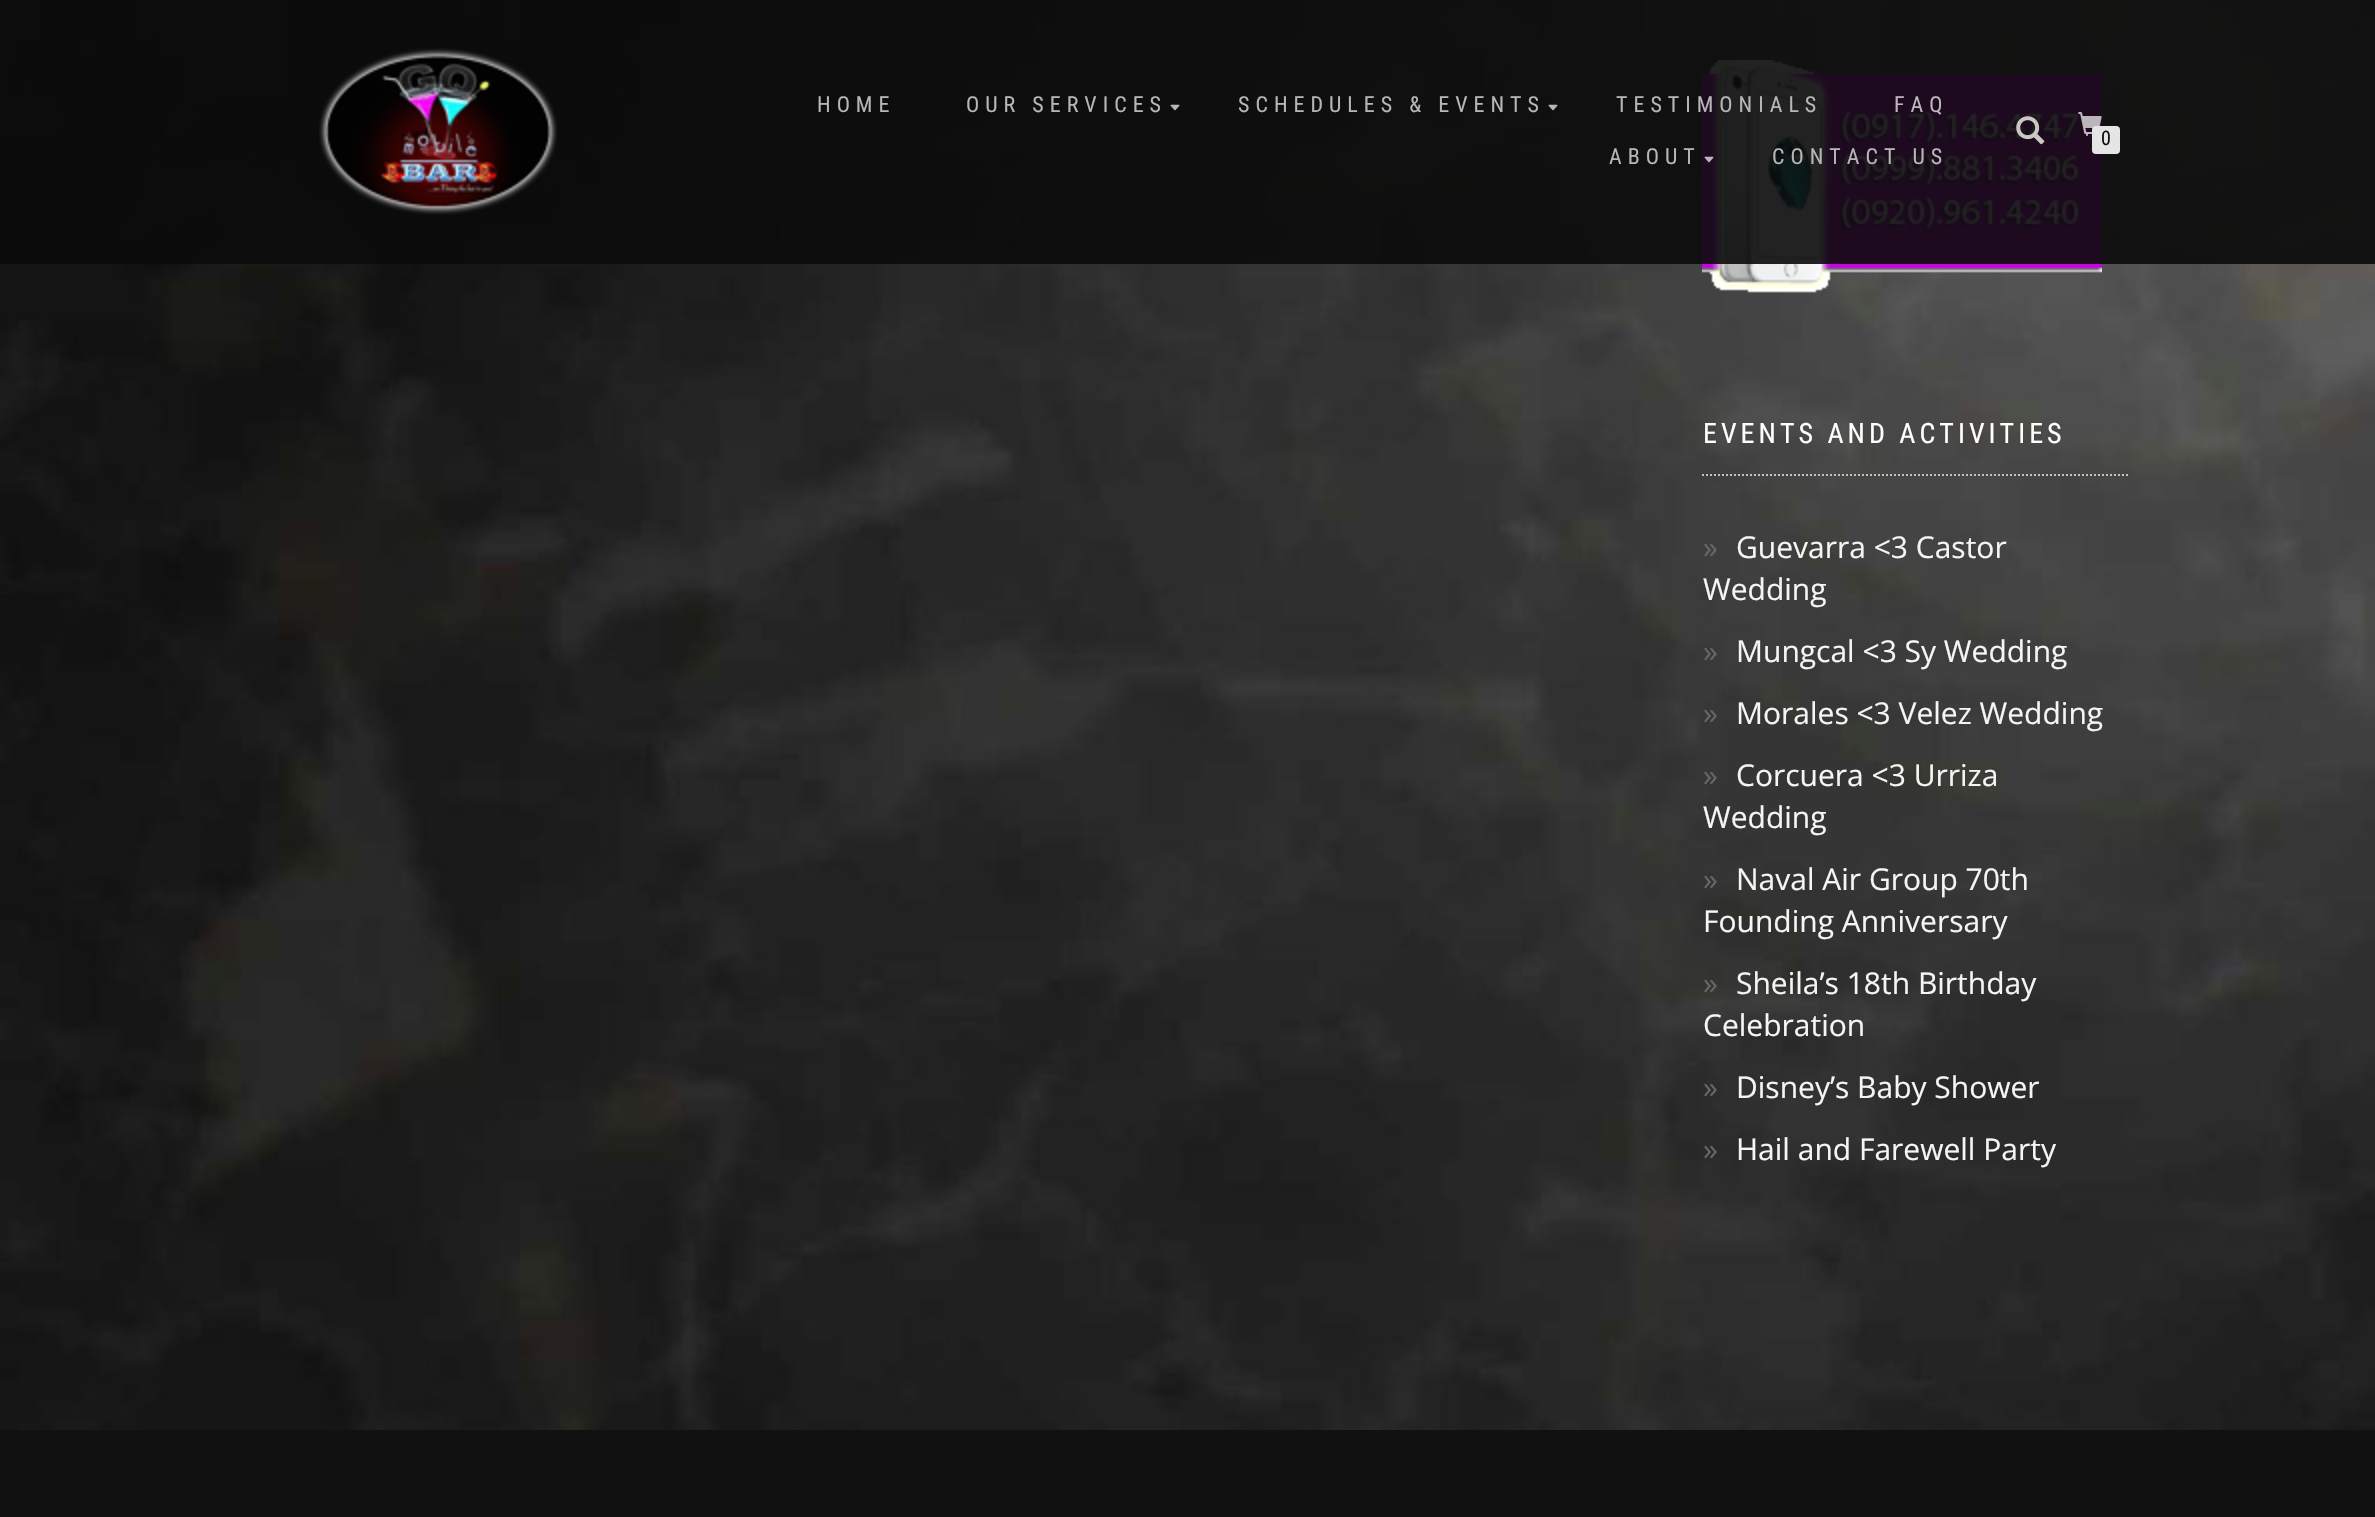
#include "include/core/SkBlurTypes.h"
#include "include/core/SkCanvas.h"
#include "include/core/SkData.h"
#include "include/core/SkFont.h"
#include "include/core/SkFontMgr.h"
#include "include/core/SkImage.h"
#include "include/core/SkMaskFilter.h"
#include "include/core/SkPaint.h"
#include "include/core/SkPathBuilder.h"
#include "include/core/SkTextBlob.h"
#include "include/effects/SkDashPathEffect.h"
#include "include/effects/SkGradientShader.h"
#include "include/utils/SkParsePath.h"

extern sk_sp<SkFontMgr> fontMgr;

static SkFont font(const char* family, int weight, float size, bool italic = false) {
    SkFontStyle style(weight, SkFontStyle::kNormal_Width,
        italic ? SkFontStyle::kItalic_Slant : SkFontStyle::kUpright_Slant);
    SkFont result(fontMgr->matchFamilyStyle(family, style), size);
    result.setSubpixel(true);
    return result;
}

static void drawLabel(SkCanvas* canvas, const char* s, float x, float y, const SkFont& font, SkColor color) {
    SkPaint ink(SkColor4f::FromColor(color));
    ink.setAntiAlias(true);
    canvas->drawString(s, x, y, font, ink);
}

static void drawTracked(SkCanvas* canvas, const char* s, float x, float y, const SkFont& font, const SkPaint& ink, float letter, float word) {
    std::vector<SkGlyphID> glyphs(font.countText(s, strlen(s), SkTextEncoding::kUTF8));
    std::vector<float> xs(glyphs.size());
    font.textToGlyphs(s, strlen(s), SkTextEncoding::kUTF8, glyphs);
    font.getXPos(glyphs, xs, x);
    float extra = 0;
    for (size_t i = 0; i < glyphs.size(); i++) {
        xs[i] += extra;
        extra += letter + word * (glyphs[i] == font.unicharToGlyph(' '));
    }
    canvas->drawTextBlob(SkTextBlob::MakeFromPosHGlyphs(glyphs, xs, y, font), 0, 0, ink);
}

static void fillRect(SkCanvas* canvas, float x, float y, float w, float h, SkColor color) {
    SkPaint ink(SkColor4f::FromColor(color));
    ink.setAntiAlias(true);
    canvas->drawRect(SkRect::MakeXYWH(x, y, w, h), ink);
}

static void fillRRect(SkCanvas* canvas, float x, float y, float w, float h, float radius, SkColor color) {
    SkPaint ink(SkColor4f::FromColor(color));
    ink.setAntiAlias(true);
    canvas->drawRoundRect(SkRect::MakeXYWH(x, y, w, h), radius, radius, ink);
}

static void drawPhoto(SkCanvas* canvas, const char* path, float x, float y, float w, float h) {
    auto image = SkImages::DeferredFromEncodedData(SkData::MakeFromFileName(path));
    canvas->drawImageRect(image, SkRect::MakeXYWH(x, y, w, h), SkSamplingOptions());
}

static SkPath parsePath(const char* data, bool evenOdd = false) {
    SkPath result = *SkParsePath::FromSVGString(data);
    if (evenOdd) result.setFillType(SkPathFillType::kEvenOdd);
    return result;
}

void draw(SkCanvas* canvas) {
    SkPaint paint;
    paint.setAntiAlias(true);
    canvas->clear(0xFFFFFFFF);
    drawPhoto(canvas, "assets/img1.png", 0, 0, 2375, 1430);
    drawPhoto(canvas, "assets/img8.png", 1702, 60, 400, 233);
    fillRect(canvas, 0, 0, 2375, 264, 0xE60A0A0A);
    drawPhoto(canvas, "assets/img2.png", 319, 48, 238, 167);
    SkFont font1 = font("Roboto Condensed", 400, 22);
    paint.setColor(0xFFB6B6B6);
    drawTracked(canvas, "HOME", 817, 112, font1, paint, 6, 0);
    drawTracked(canvas, "OUR SERVICES", 966, 112, font1, paint, 6, 0);
    drawPhoto(canvas, "assets/img3.png", 1170, 104, 10, 7);
    drawTracked(canvas, "SCHEDULES & EVENTS", 1238, 112, font1, paint, 6, 0);
    drawPhoto(canvas, "assets/img4.png", 1548, 104, 10, 7);
    drawTracked(canvas, "TESTIMONIALS", 1616, 112, font1, paint, 6, 0);
    paint.setColor(0xFFBBB5BC);
    drawTracked(canvas, "FAQ", 1894, 112, font1, paint, 6, 0);
    paint.setColor(0xFFB6B6B6);
    drawTracked(canvas, "ABOUT", 1609, 164, font1, paint, 6, 0);
    drawPhoto(canvas, "assets/img5.png", 1704, 156, 10, 7);
    drawTracked(canvas, "CONTACT US", 1772, 164, font1, paint, 6, 0);
    drawPhoto(canvas, "assets/img6.png", 2016, 116, 29, 29);
    drawPhoto(canvas, "assets/img7.png", 2078, 112, 24, 24);
    fillRRect(canvas, 2092, 126, 28, 28, 4, 0xFFE5E5E5);
    SkFont font2 = font("Roboto Condensed", 400, 20);
    drawLabel(canvas, "0", 2101, 145, font2, 0xFF111111);
    paint.setStroke(true);
    paint.setStrokeWidth(2);
    paint.setColor(0xFFC2C2C2);
    paint.setPathEffect(SkDashPathEffect::Make({{2, 2}}, 0));
    canvas->drawPath(parsePath("M1702 475H2128"), paint);
    paint.setPathEffect(nullptr);
    SkFont font3 = font("Roboto Condensed", 400, 28);
    paint.setStroke(false);
    paint.setColor(0xFFFFFFFF);
    drawTracked(canvas, "EVENTS AND ACTIVITIES", 1703, 443, font3, paint, 4, 0);
    SkFont font4 = font("Open Sans", 400, 30);
    drawLabel(canvas, "»", 1703, 558, font4, 0xFF666666);
    drawLabel(canvas, "Guevarra <3 Castor", 1736, 558, font4, 0xFFF5F5F5);
    drawLabel(canvas, "Wedding", 1703, 600, font4, 0xFFF5F5F5);
    drawLabel(canvas, "»", 1703, 662, font4, 0xFF666666);
    drawLabel(canvas, "Mungcal <3 Sy Wedding", 1736, 662, font4, 0xFFF5F5F5);
    drawLabel(canvas, "»", 1703, 724, font4, 0xFF666666);
    drawLabel(canvas, "Morales <3 Velez Wedding", 1736, 724, font4, 0xFFF5F5F5);
    drawLabel(canvas, "»", 1703, 786, font4, 0xFF666666);
    drawLabel(canvas, "Corcuera <3 Urriza", 1736, 786, font4, 0xFFF5F5F5);
    drawLabel(canvas, "Wedding", 1703, 828, font4, 0xFFF5F5F5);
    drawLabel(canvas, "»", 1703, 890, font4, 0xFF666666);
    drawLabel(canvas, "Naval Air Group 70th", 1736, 890, font4, 0xFFF5F5F5);
    drawLabel(canvas, "Founding Anniversary", 1703, 932, font4, 0xFFF5F5F5);
    drawLabel(canvas, "»", 1703, 994, font4, 0xFF666666);
    drawLabel(canvas, "Sheila’s 18th Birthday", 1736, 994, font4, 0xFFF5F5F5);
    drawLabel(canvas, "Celebration", 1703, 1036, font4, 0xFFF5F5F5);
    drawLabel(canvas, "»", 1703, 1098, font4, 0xFF666666);
    drawLabel(canvas, "Disney’s Baby Shower", 1736, 1098, font4, 0xFFF5F5F5);
    drawLabel(canvas, "»", 1703, 1160, font4, 0xFF666666);
    drawLabel(canvas, "Hail and Farewell Party", 1736, 1160, font4, 0xFFF5F5F5);
    fillRect(canvas, 0, 1430, 2375, 87, 0xFF111111);
}
